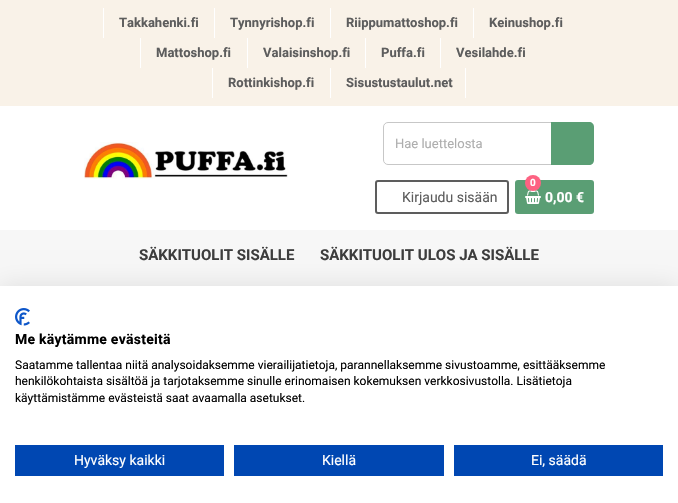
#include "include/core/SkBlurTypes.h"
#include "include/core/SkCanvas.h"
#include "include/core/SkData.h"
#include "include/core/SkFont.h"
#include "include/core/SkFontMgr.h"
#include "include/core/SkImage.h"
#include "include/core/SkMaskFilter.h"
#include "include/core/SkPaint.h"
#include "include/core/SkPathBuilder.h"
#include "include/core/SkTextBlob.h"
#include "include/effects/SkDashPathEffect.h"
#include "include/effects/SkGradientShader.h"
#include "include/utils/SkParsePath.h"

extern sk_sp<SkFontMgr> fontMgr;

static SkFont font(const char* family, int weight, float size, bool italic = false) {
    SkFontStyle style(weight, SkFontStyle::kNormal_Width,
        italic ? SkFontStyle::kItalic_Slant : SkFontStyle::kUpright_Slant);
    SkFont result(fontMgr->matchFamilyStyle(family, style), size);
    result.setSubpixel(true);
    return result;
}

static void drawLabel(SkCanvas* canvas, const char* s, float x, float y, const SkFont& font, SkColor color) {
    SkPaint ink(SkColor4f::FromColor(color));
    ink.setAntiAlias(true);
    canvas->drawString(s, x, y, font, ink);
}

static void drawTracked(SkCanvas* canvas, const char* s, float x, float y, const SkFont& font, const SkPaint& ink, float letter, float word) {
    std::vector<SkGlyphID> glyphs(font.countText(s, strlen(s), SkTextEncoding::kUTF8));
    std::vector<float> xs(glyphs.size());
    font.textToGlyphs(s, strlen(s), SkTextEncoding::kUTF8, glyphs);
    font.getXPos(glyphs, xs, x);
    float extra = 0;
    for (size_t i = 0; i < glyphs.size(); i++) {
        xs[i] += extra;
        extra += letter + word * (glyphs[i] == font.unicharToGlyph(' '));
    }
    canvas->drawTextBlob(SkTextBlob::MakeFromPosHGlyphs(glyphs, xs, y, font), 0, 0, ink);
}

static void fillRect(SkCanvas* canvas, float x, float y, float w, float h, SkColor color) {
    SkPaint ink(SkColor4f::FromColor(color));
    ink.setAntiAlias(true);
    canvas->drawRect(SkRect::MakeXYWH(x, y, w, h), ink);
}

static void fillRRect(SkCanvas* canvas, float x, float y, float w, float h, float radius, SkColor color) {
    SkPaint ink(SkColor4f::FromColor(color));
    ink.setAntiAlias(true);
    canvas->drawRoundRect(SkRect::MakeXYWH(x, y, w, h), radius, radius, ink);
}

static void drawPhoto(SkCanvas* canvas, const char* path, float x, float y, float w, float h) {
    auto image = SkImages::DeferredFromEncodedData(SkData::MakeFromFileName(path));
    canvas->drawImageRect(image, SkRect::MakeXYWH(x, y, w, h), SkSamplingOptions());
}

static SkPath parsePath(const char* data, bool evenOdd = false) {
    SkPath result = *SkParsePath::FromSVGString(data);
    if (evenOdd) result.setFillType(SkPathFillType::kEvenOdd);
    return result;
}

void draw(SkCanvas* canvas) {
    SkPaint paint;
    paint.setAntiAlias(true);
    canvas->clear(0xFFFFFFFF);
    fillRect(canvas, 0, 0, 678, 106, 0xFFF9F2E8);
    fillRect(canvas, 103, 8, 1, 30, 0xFFFFFFFF);
    SkFont font1 = font("Roboto", 700, 13);
    drawLabel(canvas, "Takkahenki.fi", 119, 27, font1, 0xFF5D5D5D);
    fillRect(canvas, 214, 8, 1, 30, 0xFFFFFFFF);
    drawLabel(canvas, "Tynnyrishop.fi", 230, 27, font1, 0xFF5D5D5D);
    fillRect(canvas, 330, 8, 1, 30, 0xFFFFFFFF);
    drawLabel(canvas, "Riippumattoshop.fi", 346, 27, font1, 0xFF5D5D5D);
    fillRect(canvas, 473, 8, 1, 30, 0xFFFFFFFF);
    drawLabel(canvas, "Keinushop.fi", 489, 27, font1, 0xFF5D5D5D);
    fillRect(canvas, 140, 38, 1, 30, 0xFFFFFFFF);
    drawLabel(canvas, "Mattoshop.fi", 156, 57, font1, 0xFF5D5D5D);
    fillRect(canvas, 247, 38, 1, 30, 0xFFFFFFFF);
    drawLabel(canvas, "Valaisinshop.fi", 263, 57, font1, 0xFF5D5D5D);
    fillRect(canvas, 365, 38, 1, 30, 0xFFFFFFFF);
    drawLabel(canvas, "Puffa.fi", 381, 57, font1, 0xFF5D5D5D);
    fillRect(canvas, 440, 38, 1, 30, 0xFFFFFFFF);
    drawLabel(canvas, "Vesilahde.fi", 456, 57, font1, 0xFF5D5D5D);
    fillRect(canvas, 212, 68, 1, 30, 0xFFFFFFFF);
    drawLabel(canvas, "Rottinkishop.fi", 228, 87, font1, 0xFF5D5D5D);
    fillRect(canvas, 465, 68, 1, 30, 0xFFFFFFFF);
    fillRect(canvas, 330, 68, 1, 30, 0xFFFFFFFF);
    drawLabel(canvas, "Sisustustaulut.net", 346, 87, font1, 0xFF5D5D5D);
    drawPhoto(canvas, "assets/img1.png", 84, 142, 204, 37);
    paint.setStroke(true);
    paint.setStrokeWidth(1);
    paint.setColor(0xFFC7C7C7);
    canvas->drawRoundRect(SkRect::MakeXYWH(383.5f, 122.5f, 209, 42), 4.5f, 4.5f, paint);
    SkFont font2 = font("Roboto", 400, 13);
    drawLabel(canvas, "Hae luettelosta", 395, 148, font2, 0xFFAEAEAE);
    paint.setStroke(false);
    paint.setColor(0xFF5A9E74);
    canvas->drawPath(parsePath("M551 122H589C592 122 594 124 594 127V160C594 163 592 165 589 165H551Z"), paint);
    paint.setStroke(true);
    paint.setStrokeWidth(2);
    paint.setColor(0xFF5D5D5D);
    canvas->drawRoundRect(SkRect::MakeXYWH(376, 181, 132, 32), 2, 2, paint);
    SkFont font3 = font("Roboto", 400, 14);
    drawLabel(canvas, "Kirjaudu sisään", 402, 202, font3, 0xFF5D5D5D);
    fillRRect(canvas, 515, 180, 79, 34, 3, 0xFF5A9E74);
    drawPhoto(canvas, "assets/img2.png", 525, 190, 16, 14);
    paint.setStroke(false);
    paint.setColor(0xFFFD6282);
    canvas->drawCircle(533, 183, 8, paint);
    SkFont font4 = font("Roboto", 700, 10);
    drawLabel(canvas, "0", 530, 186, font4, 0xFFFFFFFF);
    SkFont font5 = font("Roboto", 700, 14);
    drawLabel(canvas, "0,00 €", 545, 202, font5, 0xFFFFFFFF);
    fillRect(canvas, 0, 230, 678, 56, 0xFFF7F7F7);
    SkFont font6 = font("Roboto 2", 700, 15);
    drawLabel(canvas, "SÄKKITUOLIT SISÄLLE", 139, 260, font6, 0xFF3D3D3D);
    drawLabel(canvas, "SÄKKITUOLIT ULOS JA SISÄLLE", 320, 260, font6, 0xFF3D3D3D);
    paint.setColor(0x1A000000);
    paint.setMaskFilter(SkMaskFilter::MakeBlur(kNormal_SkBlurStyle, 12));
    canvas->drawRect(SkRect::MakeXYWH(0, 286, 678, 217), paint);
    paint.setMaskFilter(nullptr);
    fillRect(canvas, 0, 286, 678, 217, 0xFFFFFFFF);
    drawPhoto(canvas, "assets/img3.png", 15, 308, 15, 18);
    paint.setColor(0xFF000000);
    drawTracked(canvas, "Me käytämme evästeitä", 15, 344, font5, paint, 0.25f, 0);
    SkFont font7 = font("Roboto", 400, 12);
    drawLabel(canvas, "Saatamme tallentaa niitä analysoidaksemme vierailijatietoja, parannellaksemme sivustoamme, esittääksemme", 15, 369, font7, 0xFF000000);
    drawLabel(canvas, "henkilökohtaista sisältöä ja tarjotaksemme sinulle erinomaisen kokemuksen verkkosivustolla. Lisätietoja", 15, 385, font7, 0xFF000000);
    drawLabel(canvas, "käyttämistämme evästeistä saat avaamalla asetukset.", 15, 402, font7, 0xFF000000);
    fillRect(canvas, 15, 445, 209, 31, 0xFF0047B2);
    drawLabel(canvas, "Hyväksy kaikki", 74, 465, font3, 0xFFFFFFFF);
    fillRect(canvas, 234, 445, 210, 31, 0xFF0047B2);
    drawLabel(canvas, "Kiellä", 322, 465, font3, 0xFFFFFFFF);
    fillRect(canvas, 454, 445, 209, 31, 0xFF0047B2);
    drawLabel(canvas, "Ei, säädä", 531, 465, font3, 0xFFFFFFFF);
}
